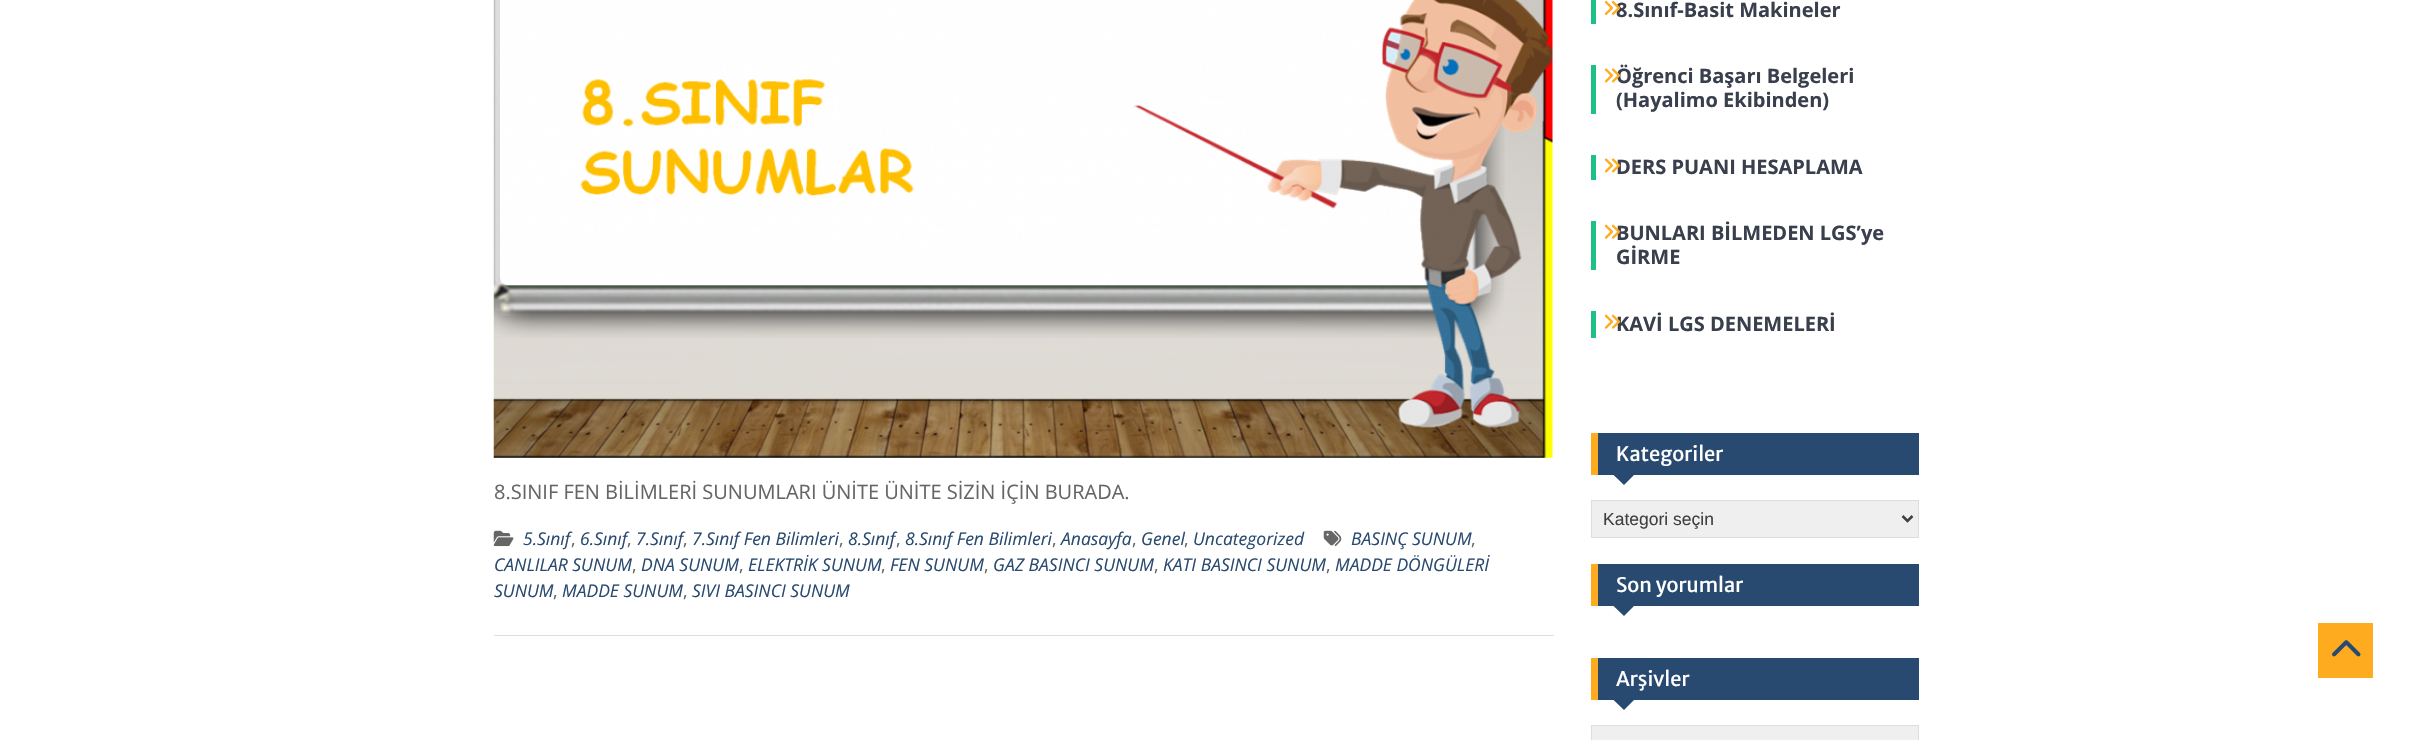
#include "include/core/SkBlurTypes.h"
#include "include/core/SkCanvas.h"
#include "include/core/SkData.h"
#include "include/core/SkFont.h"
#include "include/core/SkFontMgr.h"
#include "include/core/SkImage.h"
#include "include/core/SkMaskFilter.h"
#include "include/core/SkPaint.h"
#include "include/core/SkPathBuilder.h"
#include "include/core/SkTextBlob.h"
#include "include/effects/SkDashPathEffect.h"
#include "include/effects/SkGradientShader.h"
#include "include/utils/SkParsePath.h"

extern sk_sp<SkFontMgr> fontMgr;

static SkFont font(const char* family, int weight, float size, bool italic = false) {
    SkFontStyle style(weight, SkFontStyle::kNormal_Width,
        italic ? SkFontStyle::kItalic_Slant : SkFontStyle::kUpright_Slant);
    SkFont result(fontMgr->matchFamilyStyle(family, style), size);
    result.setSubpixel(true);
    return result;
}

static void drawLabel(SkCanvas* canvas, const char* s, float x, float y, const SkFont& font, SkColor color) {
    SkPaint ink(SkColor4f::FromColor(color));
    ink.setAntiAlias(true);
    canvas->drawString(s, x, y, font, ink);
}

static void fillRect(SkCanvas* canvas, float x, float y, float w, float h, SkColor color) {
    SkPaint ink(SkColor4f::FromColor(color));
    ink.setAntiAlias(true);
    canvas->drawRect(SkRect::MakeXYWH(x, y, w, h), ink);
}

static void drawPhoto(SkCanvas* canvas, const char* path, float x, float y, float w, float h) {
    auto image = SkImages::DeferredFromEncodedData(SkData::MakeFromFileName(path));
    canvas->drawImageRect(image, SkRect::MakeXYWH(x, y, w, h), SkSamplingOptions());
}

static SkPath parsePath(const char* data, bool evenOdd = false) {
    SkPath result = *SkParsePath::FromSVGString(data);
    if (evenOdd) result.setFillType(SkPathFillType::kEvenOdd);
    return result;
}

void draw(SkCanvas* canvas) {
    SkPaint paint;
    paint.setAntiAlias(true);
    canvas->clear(0xFFFFFFFF);
    fillRect(canvas, 494, 635, 1060, 1, 0xFFDDDDDD);
    drawPhoto(canvas, "assets/img1.png", 493, 0, 1060, 458);
    SkFont font1 = font("Open Sans", 400, 20);
    drawLabel(canvas, "8.SINIF FEN BİLİMLERİ SUNUMLARI ÜNİTE ÜNİTE SİZİN İÇİN BURADA.", 494, 499, font1, 0xFF666666);
    drawPhoto(canvas, "assets/img2.png", 493, 530, 21, 17);
    SkFont font2 = font("Open Sans", 400, 17.5f, true);
    drawLabel(canvas, "5.Sınıf", 523, 545, font2, 0xFF294A70);
    drawLabel(canvas, "6.Sınıf", 580, 545, font2, 0xFF294A70);
    drawLabel(canvas, "7.Sınıf", 636, 545, font2, 0xFF294A70);
    drawLabel(canvas, "7.Sınıf Fen Bilimleri", 692, 545, font2, 0xFF294A70);
    drawLabel(canvas, "8.Sınıf", 848, 545, font2, 0xFF294A70);
    drawLabel(canvas, "8.Sınıf Fen Bilimleri", 905, 545, font2, 0xFF294A70);
    drawLabel(canvas, "Anasayfa", 1061, 545, font2, 0xFF294A70);
    drawLabel(canvas, "Genel", 1141, 545, font2, 0xFF294A70);
    drawLabel(canvas, "Uncategorized", 1193, 545, font2, 0xFF294A70);
    SkFont font3 = font("Open Sans", 400, 17.5f);
    drawLabel(canvas, ",", 571, 545, font3, 0xFF666666);
    drawLabel(canvas, ",", 627, 545, font3, 0xFF666666);
    drawLabel(canvas, ",", 683, 545, font3, 0xFF666666);
    drawLabel(canvas, ",", 839, 545, font3, 0xFF666666);
    drawLabel(canvas, ",", 896, 545, font3, 0xFF666666);
    drawLabel(canvas, ",", 1052, 545, font3, 0xFF666666);
    drawLabel(canvas, ",", 1132, 545, font3, 0xFF666666);
    drawLabel(canvas, ",", 1184, 545, font3, 0xFF666666);
    drawPhoto(canvas, "assets/img3.png", 1323, 530, 19, 16);
    drawLabel(canvas, "BASINÇ SUNUM", 1351, 545, font2, 0xFF294A70);
    drawLabel(canvas, ",", 1471, 545, font3, 0xFF666666);
    drawLabel(canvas, "CANLILAR SUNUM", 494, 571, font2, 0xFF294A70);
    drawLabel(canvas, ",", 632, 571, font3, 0xFF666666);
    drawLabel(canvas, "DNA SUNUM", 641, 571, font2, 0xFF294A70);
    drawLabel(canvas, ",", 739, 571, font3, 0xFF666666);
    drawLabel(canvas, "ELEKTRİK SUNUM", 748, 571, font2, 0xFF294A70);
    drawLabel(canvas, ",", 881, 571, font3, 0xFF666666);
    drawLabel(canvas, "FEN SUNUM", 890, 571, font2, 0xFF294A70);
    drawLabel(canvas, ",", 984, 571, font3, 0xFF666666);
    drawLabel(canvas, "GAZ BASINCI SUNUM", 993, 571, font2, 0xFF294A70);
    drawLabel(canvas, ",", 1154, 571, font3, 0xFF666666);
    drawLabel(canvas, "KATI BASINCI SUNUM", 1163, 571, font2, 0xFF294A70);
    drawLabel(canvas, ",", 1326, 571, font3, 0xFF666666);
    drawLabel(canvas, "MADDE DÖNGÜLERİ", 1335, 571, font2, 0xFF294A70);
    drawLabel(canvas, "SUNUM", 494, 597, font2, 0xFF294A70);
    drawLabel(canvas, ",", 553, 597, font3, 0xFF666666);
    drawLabel(canvas, "MADDE SUNUM", 562, 597, font2, 0xFF294A70);
    drawLabel(canvas, ",", 683, 597, font3, 0xFF666666);
    drawLabel(canvas, "SIVI BASINCI SUNUM", 692, 597, font2, 0xFF294A70);
    fillRect(canvas, 1591, 0, 5, 24, 0xFF1EC185);
    SkFont font4 = font("Open Sans", 700, 20);
    drawLabel(canvas, "8.Sınıf-Basit Makineler", 1616, 17, font4, 0xFF393F4C);
    drawPhoto(canvas, "assets/img4.png", 1604, 1, 16, 14);
    fillRect(canvas, 1591, 65, 5, 49, 0xFF1EC185);
    drawLabel(canvas, "Öğrenci Başarı Belgeleri", 1616, 83, font4, 0xFF393F4C);
    drawPhoto(canvas, "assets/img5.png", 1604, 68, 17, 15);
    drawLabel(canvas, "(Hayalimo Ekibinden)", 1616, 107, font4, 0xFF393F4C);
    fillRect(canvas, 1591, 155, 5, 25, 0xFF1EC185);
    drawLabel(canvas, "DERS PUANI HESAPLAMA", 1616, 174, font4, 0xFF393F4C);
    drawPhoto(canvas, "assets/img6.png", 1604, 158, 17, 15);
    fillRect(canvas, 1591, 221, 5, 49, 0xFF1EC185);
    drawLabel(canvas, "BUNLARI BİLMEDEN LGS’ye", 1616, 240, font4, 0xFF393F4C);
    drawPhoto(canvas, "assets/img7.png", 1604, 224, 17, 15);
    drawLabel(canvas, "GİRME", 1616, 264, font4, 0xFF393F4C);
    fillRect(canvas, 1591, 311, 5, 27, 0xFF1EC185);
    drawLabel(canvas, "KAVİ LGS DENEMELERİ", 1616, 331, font4, 0xFF393F4C);
    drawPhoto(canvas, "assets/img8.png", 1604, 314, 17, 15);
    fillRect(canvas, 1598, 433, 321, 42, 0xFF294A70);
    fillRect(canvas, 1591, 433, 7, 42, 0xFFFFAB1F);
    SkFont font5 = font("Merriweather Sans", 400, 20);
    drawLabel(canvas, "Kategoriler", 1616, 461, font5, 0xFFFFFFFF);
    paint.setColor(0xFF294A70);
    canvas->drawPath(parsePath("M1612.5 474H1635L1624 485Z"), paint);
    paint.setColor(0xFFEFEFEF);
    canvas->drawRect(SkRect::MakeXYWH(1591.5f, 500.5f, 327, 37), paint);
    paint.setStroke(true);
    paint.setStrokeWidth(1);
    paint.setColor(0xFFDDDDDD);
    canvas->drawRect(SkRect::MakeXYWH(1591.5f, 500.5f, 327, 37), paint);
    paint.setStrokeWidth(2.5f);
    paint.setColor(0xFF404040);
    canvas->drawPath(parsePath("M1902.5 516L1907.5 521L1912.5 516"), paint);
    SkFont font6 = font("Liberation Sans", 400, 17.5f);
    drawLabel(canvas, "Kategori seçin", 1603, 525, font6, 0xFF404040);
    fillRect(canvas, 1598, 564, 321, 42, 0xFF294A70);
    fillRect(canvas, 1591, 564, 7, 42, 0xFFFFAB1F);
    drawLabel(canvas, "Son yorumlar", 1616, 592, font5, 0xFFFFFFFF);
    paint.setStroke(false);
    paint.setColor(0xFF294A70);
    canvas->drawPath(parsePath("M1612.5 605H1635L1624 616Z"), paint);
    fillRect(canvas, 1598, 658, 321, 42, 0xFF294A70);
    fillRect(canvas, 1591, 658, 7, 42, 0xFFFFAB1F);
    drawLabel(canvas, "Arşivler", 1616, 686, font5, 0xFFFFFFFF);
    canvas->drawPath(parsePath("M1612.5 699H1635L1624 710Z"), paint);
    paint.setColor(0xFFEFEFEF);
    canvas->drawRect(SkRect::MakeXYWH(1591.5f, 725.5f, 327, 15), paint);
    paint.setStroke(true);
    paint.setStrokeWidth(1);
    paint.setColor(0xFFDDDDDD);
    canvas->drawRect(SkRect::MakeXYWH(1591.5f, 725.5f, 327, 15), paint);
    fillRect(canvas, 2318, 623, 55, 55, 0xFFFFAB1F);
    drawPhoto(canvas, "assets/img9.png", 2332, 640, 29, 17);
}
